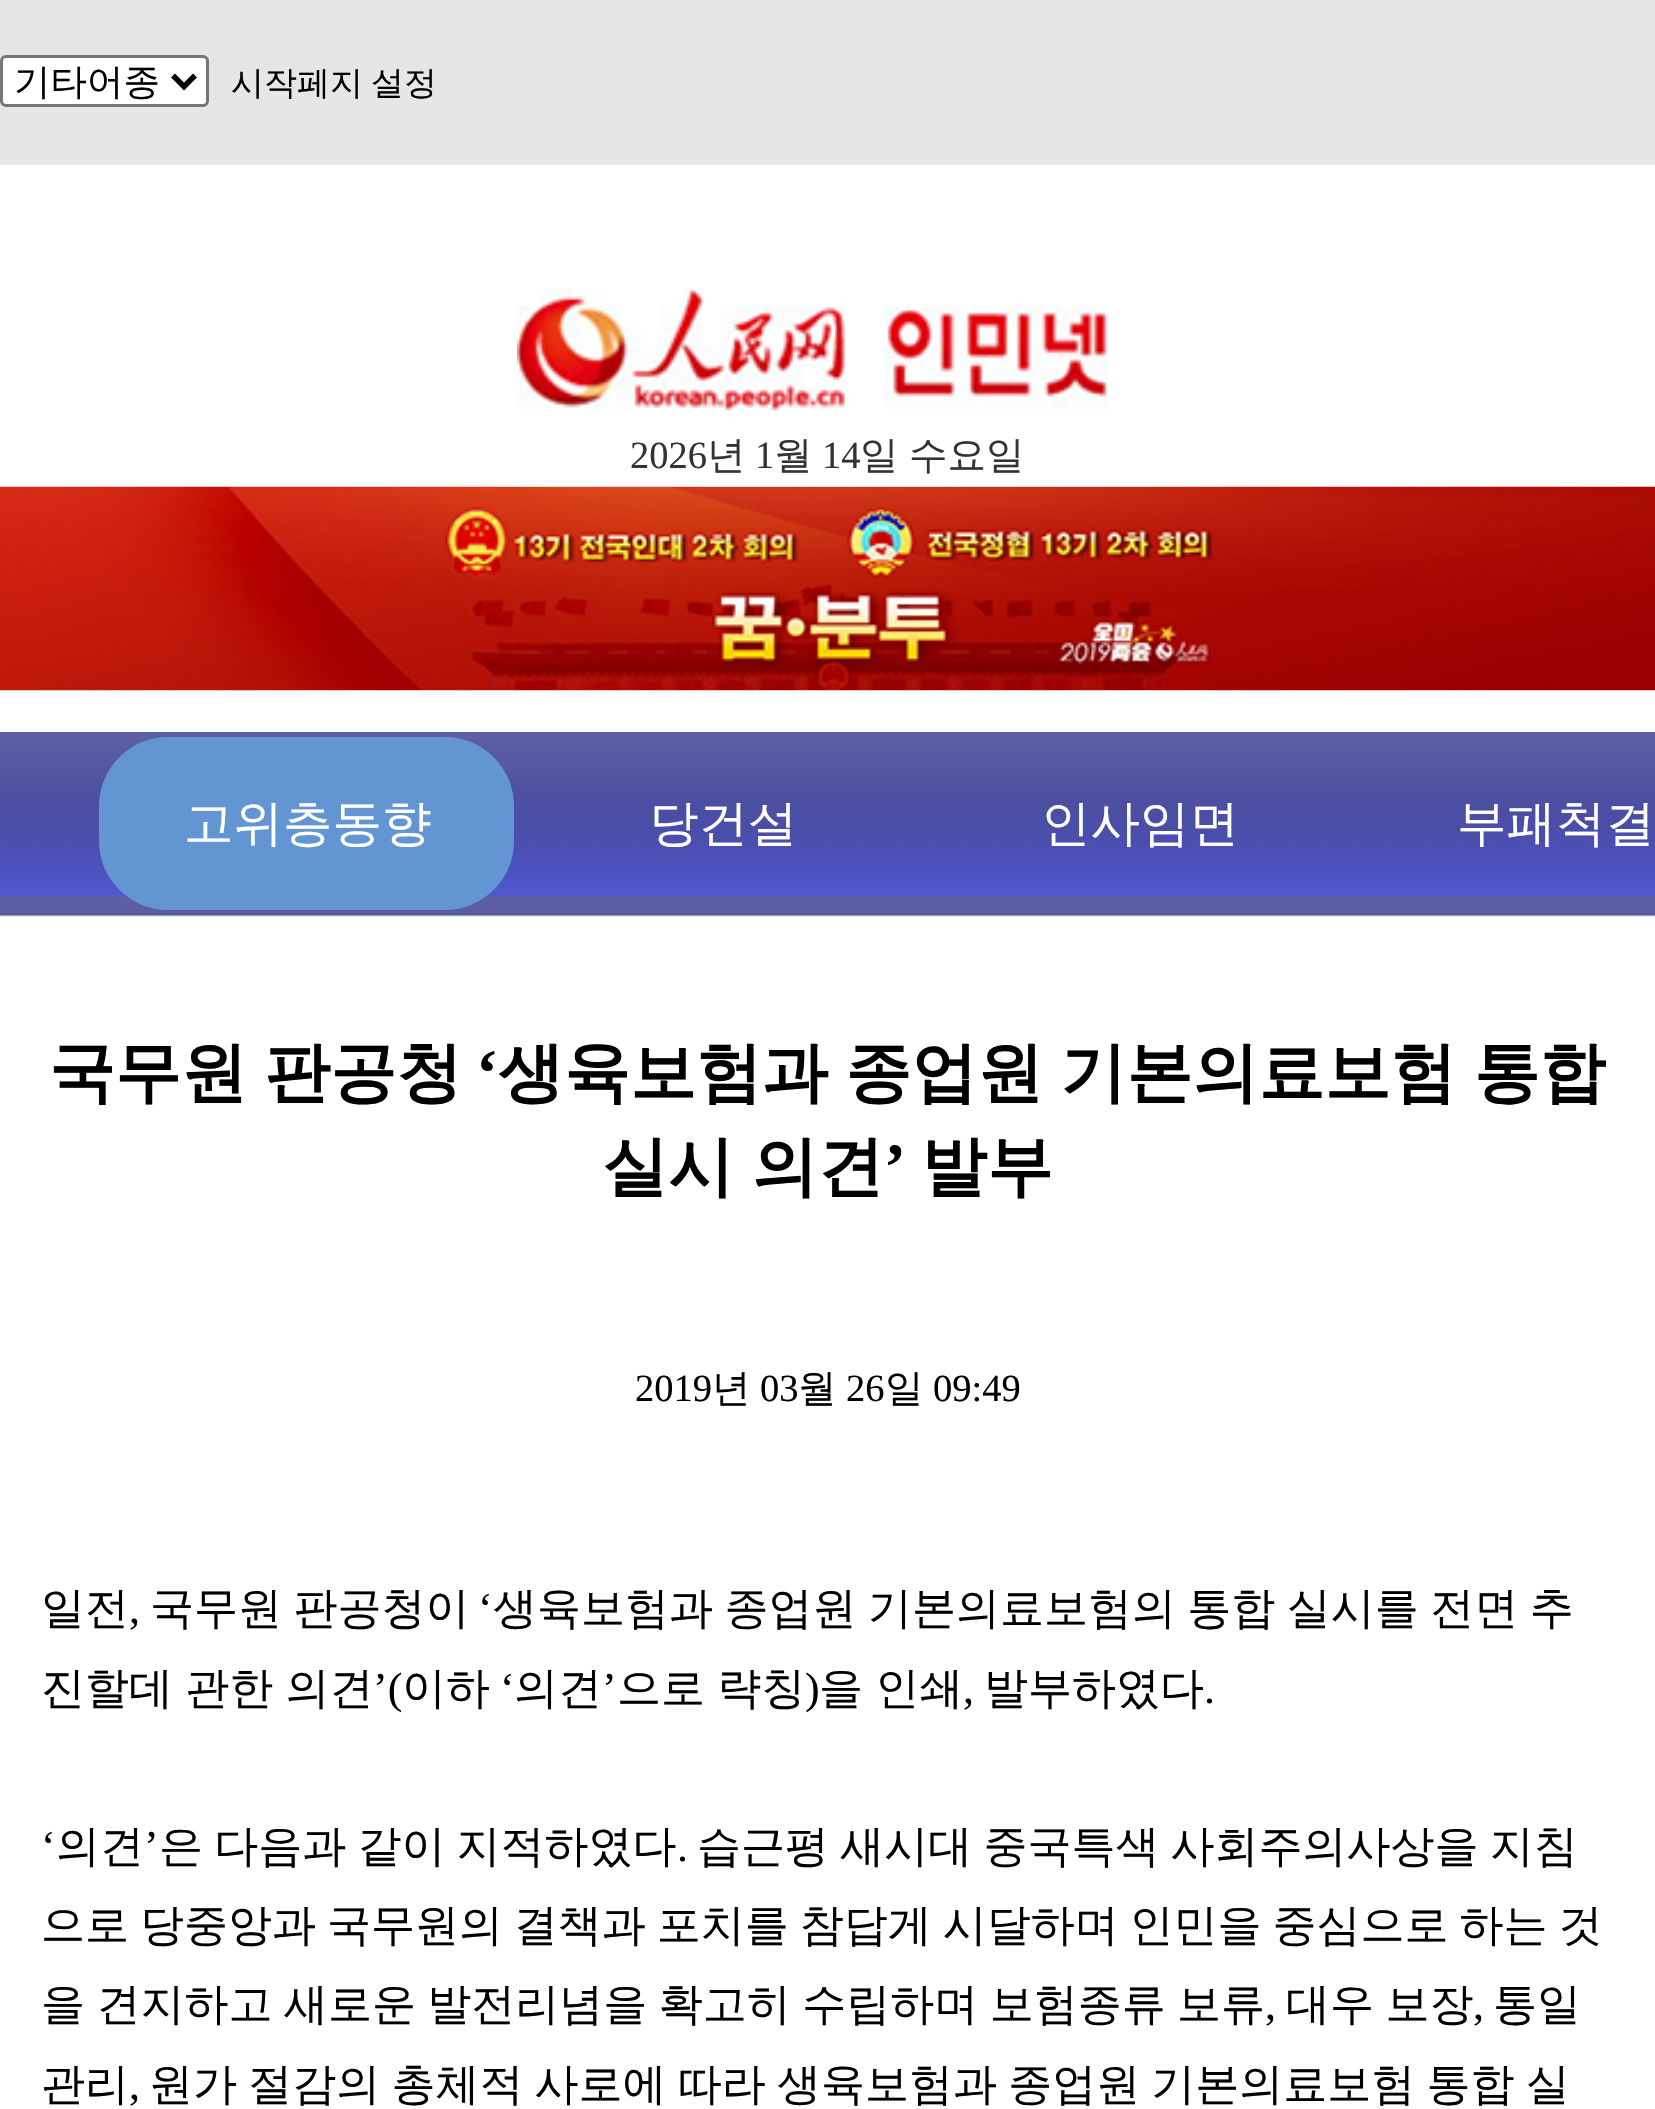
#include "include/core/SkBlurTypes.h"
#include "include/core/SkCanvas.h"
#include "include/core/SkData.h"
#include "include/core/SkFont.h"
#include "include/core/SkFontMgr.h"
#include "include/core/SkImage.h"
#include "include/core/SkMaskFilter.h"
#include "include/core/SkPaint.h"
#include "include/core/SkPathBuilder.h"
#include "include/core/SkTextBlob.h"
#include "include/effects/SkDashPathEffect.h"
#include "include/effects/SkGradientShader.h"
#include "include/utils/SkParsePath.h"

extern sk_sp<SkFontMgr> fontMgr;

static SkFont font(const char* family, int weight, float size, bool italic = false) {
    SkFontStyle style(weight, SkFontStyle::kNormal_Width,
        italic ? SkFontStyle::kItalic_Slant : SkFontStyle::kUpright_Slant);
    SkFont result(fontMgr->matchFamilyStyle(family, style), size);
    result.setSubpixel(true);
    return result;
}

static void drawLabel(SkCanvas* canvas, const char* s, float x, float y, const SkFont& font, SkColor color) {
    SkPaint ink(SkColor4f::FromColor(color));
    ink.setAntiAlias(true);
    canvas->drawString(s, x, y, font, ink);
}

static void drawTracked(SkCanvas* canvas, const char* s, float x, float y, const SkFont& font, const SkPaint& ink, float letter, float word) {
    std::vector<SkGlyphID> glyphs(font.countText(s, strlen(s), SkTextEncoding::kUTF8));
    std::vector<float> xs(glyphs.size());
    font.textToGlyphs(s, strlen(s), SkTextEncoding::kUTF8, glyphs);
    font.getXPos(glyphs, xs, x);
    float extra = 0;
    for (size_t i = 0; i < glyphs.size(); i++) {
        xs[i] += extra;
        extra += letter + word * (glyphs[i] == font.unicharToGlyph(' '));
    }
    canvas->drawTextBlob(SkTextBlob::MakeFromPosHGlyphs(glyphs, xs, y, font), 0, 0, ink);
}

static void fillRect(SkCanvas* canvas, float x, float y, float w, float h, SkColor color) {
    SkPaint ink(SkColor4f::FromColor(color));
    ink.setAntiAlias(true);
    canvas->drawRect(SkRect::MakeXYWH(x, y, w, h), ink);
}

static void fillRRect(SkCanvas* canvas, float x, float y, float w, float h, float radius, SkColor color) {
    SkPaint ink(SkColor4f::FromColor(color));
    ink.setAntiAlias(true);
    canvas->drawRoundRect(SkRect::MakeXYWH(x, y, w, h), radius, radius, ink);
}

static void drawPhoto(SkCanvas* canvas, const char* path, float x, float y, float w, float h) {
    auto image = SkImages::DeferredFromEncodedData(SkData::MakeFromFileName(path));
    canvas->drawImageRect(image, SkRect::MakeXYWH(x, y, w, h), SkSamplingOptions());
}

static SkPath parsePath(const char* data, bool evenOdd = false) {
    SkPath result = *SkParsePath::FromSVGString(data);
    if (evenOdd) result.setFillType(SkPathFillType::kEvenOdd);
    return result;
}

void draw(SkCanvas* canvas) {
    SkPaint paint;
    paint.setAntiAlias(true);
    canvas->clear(0xFFFFFFFF);
    fillRect(canvas, 0, 0, 1655, 165, 0xFFE6E6E6);
    paint.setColor(0xFFFFFFFF);
    canvas->drawRoundRect(SkRect::MakeXYWH(1.5f, 56.5f, 206, 49), 4.5f, 4.5f, paint);
    paint.setStroke(true);
    paint.setStrokeWidth(3);
    paint.setColor(0xFF767676);
    canvas->drawRoundRect(SkRect::MakeXYWH(1.5f, 56.5f, 206, 49), 4.5f, 4.5f, paint);
    paint.setStrokeWidth(5.5f);
    paint.setColor(0xFF000000);
    canvas->drawPath(parsePath("M173 75.5L184 86.5L195 75.5"), paint);
    SkFont font1 = font("WenQuanYi Zen Hei", 500, 36.5f);
    drawLabel(canvas, "기타어종", 14, 94, font1, 0xFF000000);
    SkFont font2 = font("WenQuanYi Zen Hei", 500, 33);
    paint.setStroke(false);
    drawTracked(canvas, "시작페지 설정", 231, 94, font2, paint, 0, -2);
    drawPhoto(canvas, "assets/img1.png", 517, 288, 592, 123);
    SkFont font3 = font("Liberation Serif", 400, 38.5f);
    drawLabel(canvas, "2026", 630, 468, font3, 0xFF333333);
    SkFont font4 = font("WenQuanYi Zen Hei", 500, 38.5f);
    drawLabel(canvas, "년", 707, 468, font4, 0xFF333333);
    drawLabel(canvas, "1", 755, 468, font3, 0xFF333333);
    drawLabel(canvas, "월", 774, 468, font4, 0xFF333333);
    drawLabel(canvas, "14", 822, 468, font3, 0xFF333333);
    paint.setColor(0xFF333333);
    drawTracked(canvas, "일 수요일", 860, 468, font4, paint, 0, -1);
    drawPhoto(canvas, "assets/img2.png", 0, 486, 1655, 205);
    drawPhoto(canvas, "assets/img3.png", 0, 732, 1655, 185);
    fillRRect(canvas, 99, 737, 415, 173, 69, 0xFF6495D3);
    SkFont font5 = font("WenQuanYi Zen Hei", 500, 49.5f);
    drawLabel(canvas, "고위층동향", 184, 840, font5, 0xFFFFFFFF);
    drawLabel(canvas, "당건설", 649, 840, font5, 0xFFFFFFFF);
    drawLabel(canvas, "인사임면", 1041, 840, font5, 0xFFFFFFFF);
    drawLabel(canvas, "부패척결", 1457, 840, font5, 0xFFFFFFFF);
    SkFont font6 = font("WenQuanYi Zen Hei", 700, 66);
    paint.setColor(0xFF000000);
    drawTracked(canvas, "국무원 판공청", 49, 1095, font6, paint, 0, -2.5f);
    SkFont font7 = font("Liberation Serif", 700, 66);
    drawLabel(canvas, "‘", 476, 1095, font7, 0xFF000000);
    drawTracked(canvas, "생육보험과 종업원 기본의료보험 통합", 498, 1095, font6, paint, 0, -2.5f);
    drawTracked(canvas, "실시 의견", 602, 1189, font6, paint, 0, -2);
    drawLabel(canvas, "’", 884, 1189, font7, 0xFF000000);
    drawLabel(canvas, "발부", 921, 1189, font6, 0xFF000000);
    drawLabel(canvas, "2019", 635, 1401, font3, 0xFF000000);
    drawLabel(canvas, "년", 712, 1401, font4, 0xFF000000);
    drawLabel(canvas, "03", 760, 1401, font3, 0xFF000000);
    drawLabel(canvas, "월", 798, 1401, font4, 0xFF000000);
    drawLabel(canvas, "26", 846, 1401, font3, 0xFF000000);
    drawLabel(canvas, "일", 885, 1401, font4, 0xFF000000);
    drawLabel(canvas, "09:49", 933, 1401, font3, 0xFF000000);
    SkFont font8 = font("WenQuanYi Zen Hei", 500, 44);
    drawLabel(canvas, "일전", 41, 1623, font8, 0xFF000000);
    drawTracked(canvas, "국무원 판공청이", 150, 1623, font8, paint, 0, -1.75f);
    SkFont font9 = font("Liberation Serif", 400, 44);
    drawLabel(canvas, "‘", 478, 1623, font9, 0xFF000000);
    drawTracked(canvas, "생육보험과 종업원 기본의료보험의 통합 실시를 전면 추", 493, 1623, font8, paint, 0, -1.75f);
    drawLabel(canvas, ",", 129, 1623, font9, 0xFF000000);
    drawTracked(canvas, "진할데 관한 의견", 41, 1703, font8, paint, 0, -1);
    drawLabel(canvas, "’(", 373, 1703, font9, 0xFF000000);
    drawLabel(canvas, "이하", 402, 1703, font8, 0xFF000000);
    drawLabel(canvas, "‘", 500, 1703, font9, 0xFF000000);
    drawLabel(canvas, "의견", 514, 1703, font8, 0xFF000000);
    drawLabel(canvas, "’", 602, 1703, font9, 0xFF000000);
    drawTracked(canvas, "으로 략칭", 617, 1703, font8, paint, 0, -1);
    drawLabel(canvas, ")", 805, 1703, font9, 0xFF000000);
    drawTracked(canvas, "을 인쇄", 819, 1703, font8, paint, 0, -1);
    drawLabel(canvas, "발부하였다", 984, 1703, font8, 0xFF000000);
    drawLabel(canvas, ",", 963, 1703, font9, 0xFF000000);
    drawLabel(canvas, ".", 1204, 1703, font9, 0xFF000000);
    drawLabel(canvas, "‘", 41, 1861, font9, 0xFF000000);
    drawLabel(canvas, "의견", 56, 1861, font8, 0xFF000000);
    drawLabel(canvas, "’", 144, 1861, font9, 0xFF000000);
    drawTracked(canvas, "은 다음과 같이 지적하였다", 159, 1861, font8, paint, 0, -2);
    drawTracked(canvas, "습근평 새시대 중국특색 사회주의사상을 지침", 697, 1861, font8, paint, 0, -2);
    drawLabel(canvas, ".", 677, 1861, font9, 0xFF000000);
    drawTracked(canvas, "으로 당중앙과 국무원의 결책과 포치를 참답게 시달하며 인민을 중심으로 하는 것", 41, 1940, font8, paint, 0, -2.25f);
    drawTracked(canvas, "을 견지하고 새로운 발전리념을 확고히 수립하며 보험종류 보류", 41, 2019, font8, paint, 0, -1.75f);
    drawLabel(canvas, ",", 1265, 2019, font9, 0xFF000000);
    drawTracked(canvas, "대우 보장", 1286, 2019, font8, paint, 0, -1.75f);
    drawLabel(canvas, ",", 1473, 2019, font9, 0xFF000000);
    drawLabel(canvas, "통일", 1493, 2019, font8, 0xFF000000);
    drawLabel(canvas, "관리", 41, 2099, font8, 0xFF000000);
    drawLabel(canvas, ",", 129, 2099, font9, 0xFF000000);
    drawTracked(canvas, "원가 절감의 총체적 사로에 따라 생육보험과 종업원 기본의료보험 통합 실", 149, 2099, font8, paint, 0, -2);
}
